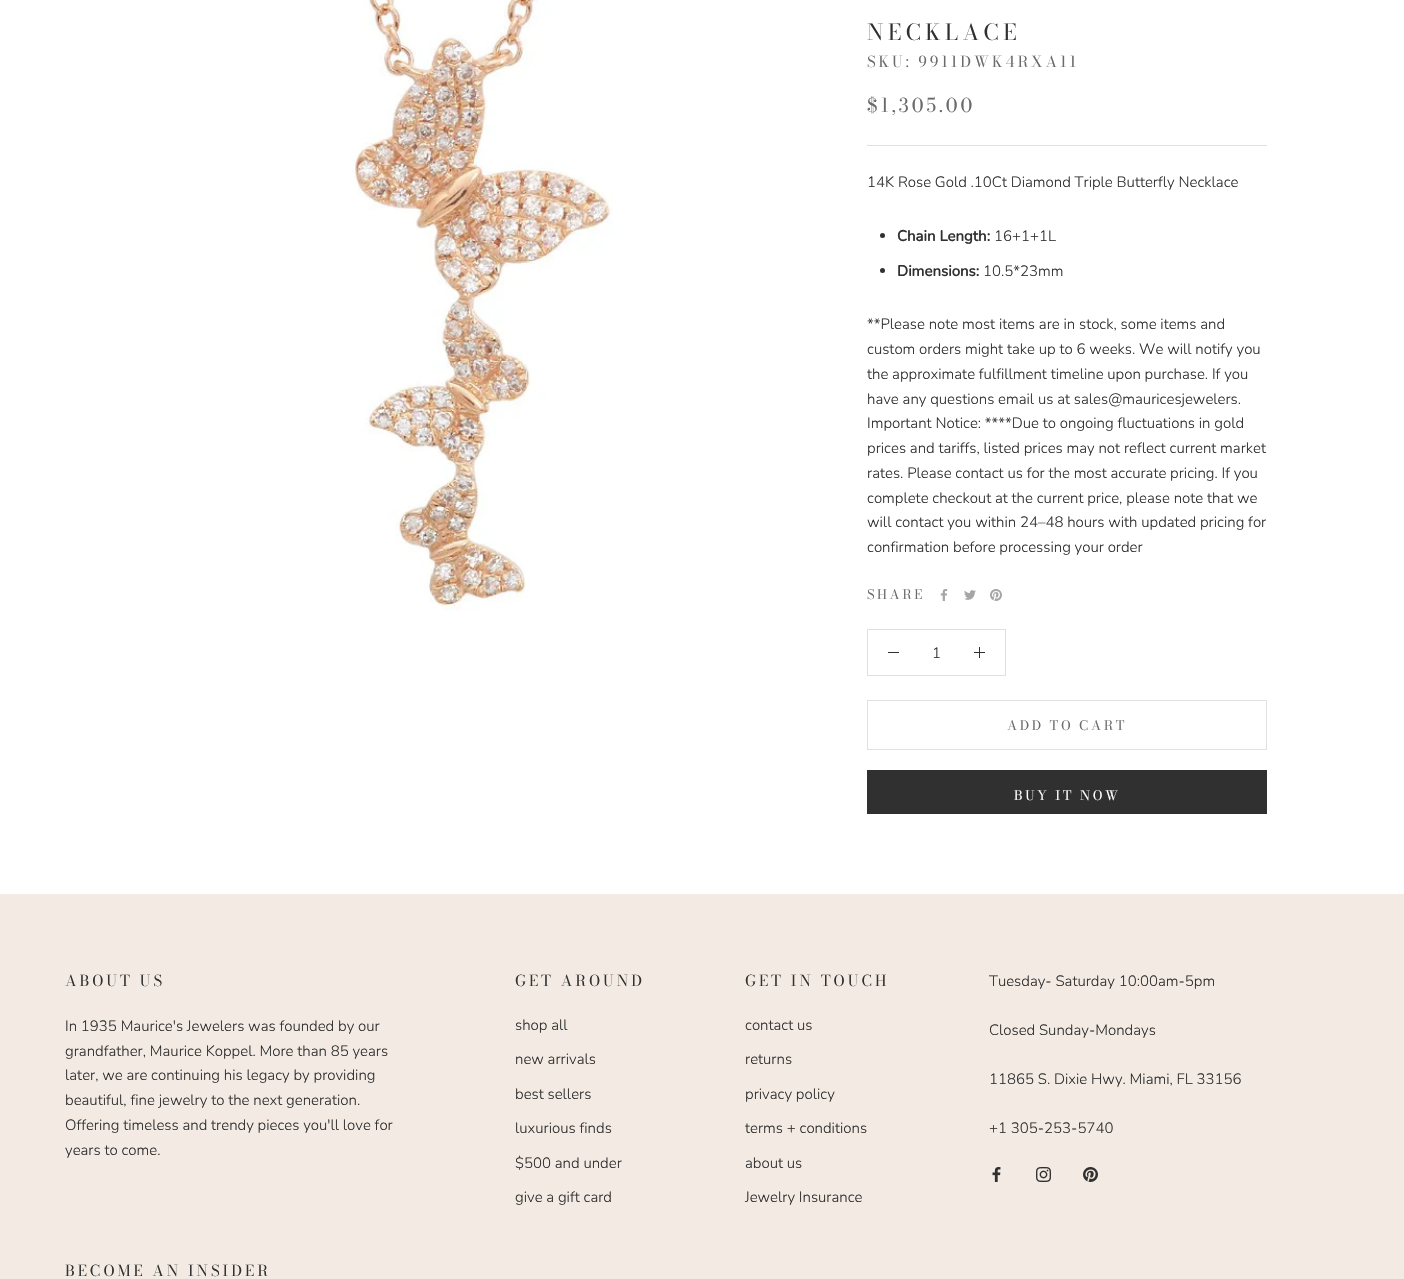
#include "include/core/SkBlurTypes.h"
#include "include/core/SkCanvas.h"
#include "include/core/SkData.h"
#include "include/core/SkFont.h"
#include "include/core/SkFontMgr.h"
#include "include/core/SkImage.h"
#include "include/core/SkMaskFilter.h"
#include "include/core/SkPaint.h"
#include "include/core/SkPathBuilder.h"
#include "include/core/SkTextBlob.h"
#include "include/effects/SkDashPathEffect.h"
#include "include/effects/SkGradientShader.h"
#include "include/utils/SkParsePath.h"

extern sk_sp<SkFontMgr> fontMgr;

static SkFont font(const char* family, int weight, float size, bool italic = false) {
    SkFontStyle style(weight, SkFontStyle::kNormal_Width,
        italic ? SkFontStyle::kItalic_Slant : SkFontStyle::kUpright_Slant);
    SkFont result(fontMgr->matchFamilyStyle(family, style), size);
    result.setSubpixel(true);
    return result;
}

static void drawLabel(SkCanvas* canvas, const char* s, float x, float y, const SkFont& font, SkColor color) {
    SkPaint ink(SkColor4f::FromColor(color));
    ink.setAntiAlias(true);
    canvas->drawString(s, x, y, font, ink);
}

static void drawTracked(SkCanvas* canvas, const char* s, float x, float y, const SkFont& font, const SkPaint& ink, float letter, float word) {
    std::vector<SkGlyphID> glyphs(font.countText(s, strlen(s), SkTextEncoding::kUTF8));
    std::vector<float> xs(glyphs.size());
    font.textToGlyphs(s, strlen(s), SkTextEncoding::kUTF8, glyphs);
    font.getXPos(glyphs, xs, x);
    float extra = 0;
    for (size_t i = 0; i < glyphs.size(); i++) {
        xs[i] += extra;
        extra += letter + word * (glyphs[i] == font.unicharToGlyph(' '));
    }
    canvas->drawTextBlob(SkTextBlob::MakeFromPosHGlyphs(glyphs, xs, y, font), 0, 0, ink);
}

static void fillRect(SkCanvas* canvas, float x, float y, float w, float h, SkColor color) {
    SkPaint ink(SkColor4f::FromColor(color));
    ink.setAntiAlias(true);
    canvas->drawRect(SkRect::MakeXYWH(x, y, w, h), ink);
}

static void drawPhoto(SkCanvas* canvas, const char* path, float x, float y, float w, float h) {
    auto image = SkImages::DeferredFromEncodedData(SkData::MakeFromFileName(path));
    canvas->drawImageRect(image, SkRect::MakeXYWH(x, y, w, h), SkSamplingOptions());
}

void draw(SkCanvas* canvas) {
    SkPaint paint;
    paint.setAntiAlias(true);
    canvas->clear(0xFFFFFFFF);
    drawPhoto(canvas, "assets/img1.png", 350, 0, 263, 611);
    fillRect(canvas, 867, 145, 400, 1, 0xFFE0E0E0);
    SkFont font1 = font("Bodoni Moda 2", 400, 22);
    paint.setColor(0xFF303030);
    drawTracked(canvas, "NECKLACE", 867, 40, font1, paint, 4.5f, 0);
    SkFont font2 = font("Bodoni Moda", 400, 15);
    paint.setColor(0xFF6A6A6A);
    drawTracked(canvas, "SKU: 9911DWK4RXA11", 867, 67, font2, paint, 3, 0);
    SkFont font3 = font("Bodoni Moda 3", 400, 19);
    drawTracked(canvas, "$1,305.00", 867, 112, font3, paint, 3, 0);
    SkFont font4 = font("Nunito", 300, 15);
    drawLabel(canvas, "14K Rose Gold .10Ct Diamond Triple Butterfly Necklace", 867, 187, font4, 0xFF303030);
    paint.setColor(0xFF303030);
    canvas->drawCircle(882.5f, 235.5f, 2.5f, paint);
    SkFont font5 = font("Nunito", 700, 15);
    drawLabel(canvas, "Chain Length:", 897, 241, font5, 0xFF303030);
    drawLabel(canvas, "16+1+1L", 994, 241, font4, 0xFF303030);
    canvas->drawCircle(882.5f, 270.5f, 2.5f, paint);
    drawLabel(canvas, "Dimensions:", 897, 276, font5, 0xFF303030);
    drawLabel(canvas, "10.5*23mm", 983, 276, font4, 0xFF303030);
    drawLabel(canvas, "**Please note most items are in stock, some items and", 867, 329, font4, 0xFF303030);
    drawLabel(canvas, "custom orders might take up to 6 weeks. We will notify you", 867, 354, font4, 0xFF303030);
    drawLabel(canvas, "the approximate fulfillment timeline upon purchase. If you", 867, 379, font4, 0xFF303030);
    drawLabel(canvas, "have any questions email us at sales@mauricesjewelers.", 867, 404, font4, 0xFF303030);
    drawLabel(canvas, "Important Notice: ****Due to ongoing fluctuations in gold", 867, 428, font4, 0xFF303030);
    drawLabel(canvas, "prices and tariffs, listed prices may not reflect current market", 867, 453, font4, 0xFF303030);
    drawLabel(canvas, "rates. Please contact us for the most accurate pricing. If you", 867, 478, font4, 0xFF303030);
    drawLabel(canvas, "complete checkout at the current price, please note that we", 867, 503, font4, 0xFF303030);
    drawLabel(canvas, "will contact you within 24–48 hours with updated pricing for", 867, 527, font4, 0xFF303030);
    drawLabel(canvas, "confirmation before processing your order", 867, 552, font4, 0xFF303030);
    SkFont font6 = font("Bodoni Moda 3", 400, 13);
    paint.setColor(0xFF6A6A6A);
    drawTracked(canvas, "SHARE", 867, 599, font6, paint, 2.6f, 0);
    drawPhoto(canvas, "assets/img2.png", 940, 589, 8, 12);
    drawPhoto(canvas, "assets/img3.png", 964, 590, 12, 10);
    drawPhoto(canvas, "assets/img4.png", 990, 589, 12, 12);
    paint.setStroke(true);
    paint.setStrokeWidth(1);
    paint.setColor(0xFFE0E0E0);
    canvas->drawRect(SkRect::MakeXYWH(867.5f, 629.5f, 138, 46), paint);
    fillRect(canvas, 888, 652, 11, 1, 0xFF303030);
    drawLabel(canvas, "1", 932, 658, font4, 0xFF303030);
    fillRect(canvas, 979, 647, 1, 11, 0xFF303030);
    fillRect(canvas, 974, 652, 11, 1, 0xFF303030);
    paint.setColor(0xFFE1E1E1);
    canvas->drawRect(SkRect::MakeXYWH(867.5f, 700.5f, 399, 49), paint);
    paint.setStroke(false);
    paint.setColor(0xFF6A6A6A);
    drawTracked(canvas, "ADD TO CART", 1007, 730, font6, paint, 2.6f, 0);
    paint.setStroke(true);
    paint.setColor(0xFF303030);
    canvas->drawRect(SkRect::MakeXYWH(867.5f, 770.5f, 399, 43), paint);
    fillRect(canvas, 868, 771, 398, 42, 0xFF303030);
    paint.setStroke(false);
    paint.setColor(0xFFFFFFFF);
    drawTracked(canvas, "BUY IT NOW", 1014, 800, font6, paint, 2.6f, 0);
    fillRect(canvas, 0, 894, 1404, 385, 0xFFF3EBE3);
    paint.setColor(0xFF303030);
    drawTracked(canvas, "ABOUT US", 65, 986, font2, paint, 3, 0);
    drawLabel(canvas, "In 1935 Maurice's Jewelers was founded by our", 65, 1031, font4, 0xFF303030);
    drawLabel(canvas, "grandfather, Maurice Koppel. More than 85 years", 65, 1056, font4, 0xFF303030);
    drawLabel(canvas, "later, we are continuing his legacy by providing", 65, 1080, font4, 0xFF303030);
    drawLabel(canvas, "beautiful, fine jewelry to the next generation.", 65, 1105, font4, 0xFF303030);
    drawLabel(canvas, "Offering timeless and trendy pieces you'll love for", 65, 1130, font4, 0xFF303030);
    drawLabel(canvas, "years to come.", 65, 1155, font4, 0xFF303030);
    drawTracked(canvas, "GET AROUND", 515, 986, font2, paint, 3, 0);
    drawLabel(canvas, "shop all", 515, 1030, font4, 0xFF303030);
    drawLabel(canvas, "new arrivals", 515, 1064, font4, 0xFF303030);
    drawLabel(canvas, "best sellers", 515, 1099, font4, 0xFF303030);
    drawLabel(canvas, "luxurious finds", 515, 1133, font4, 0xFF303030);
    drawLabel(canvas, "$500 and under", 515, 1168, font4, 0xFF303030);
    drawLabel(canvas, "give a gift card", 515, 1202, font4, 0xFF303030);
    drawTracked(canvas, "GET IN TOUCH", 745, 986, font2, paint, 3, 0);
    drawLabel(canvas, "contact us", 745, 1030, font4, 0xFF303030);
    drawLabel(canvas, "returns", 745, 1064, font4, 0xFF303030);
    drawLabel(canvas, "privacy policy", 745, 1099, font4, 0xFF303030);
    drawLabel(canvas, "terms + conditions", 745, 1133, font4, 0xFF303030);
    drawLabel(canvas, "about us", 745, 1168, font4, 0xFF303030);
    drawLabel(canvas, "Jewelry Insurance", 745, 1202, font4, 0xFF303030);
    drawLabel(canvas, "Tuesday- Saturday 10:00am-5pm", 989, 986, font4, 0xFF303030);
    drawLabel(canvas, "Closed Sunday-Mondays", 989, 1035, font4, 0xFF303030);
    drawLabel(canvas, "11865 S. Dixie Hwy. Miami, FL 33156", 989, 1084, font4, 0xFF303030);
    drawLabel(canvas, "+1 305-253-5740", 989, 1133, font4, 0xFF303030);
    drawPhoto(canvas, "assets/img5.png", 992, 1167, 9, 15);
    drawPhoto(canvas, "assets/img6.png", 1036, 1167, 15, 15);
    drawPhoto(canvas, "assets/img7.png", 1083, 1167, 15, 15);
    drawTracked(canvas, "BECOME AN INSIDER", 65, 1276, font2, paint, 3, 0);
}
